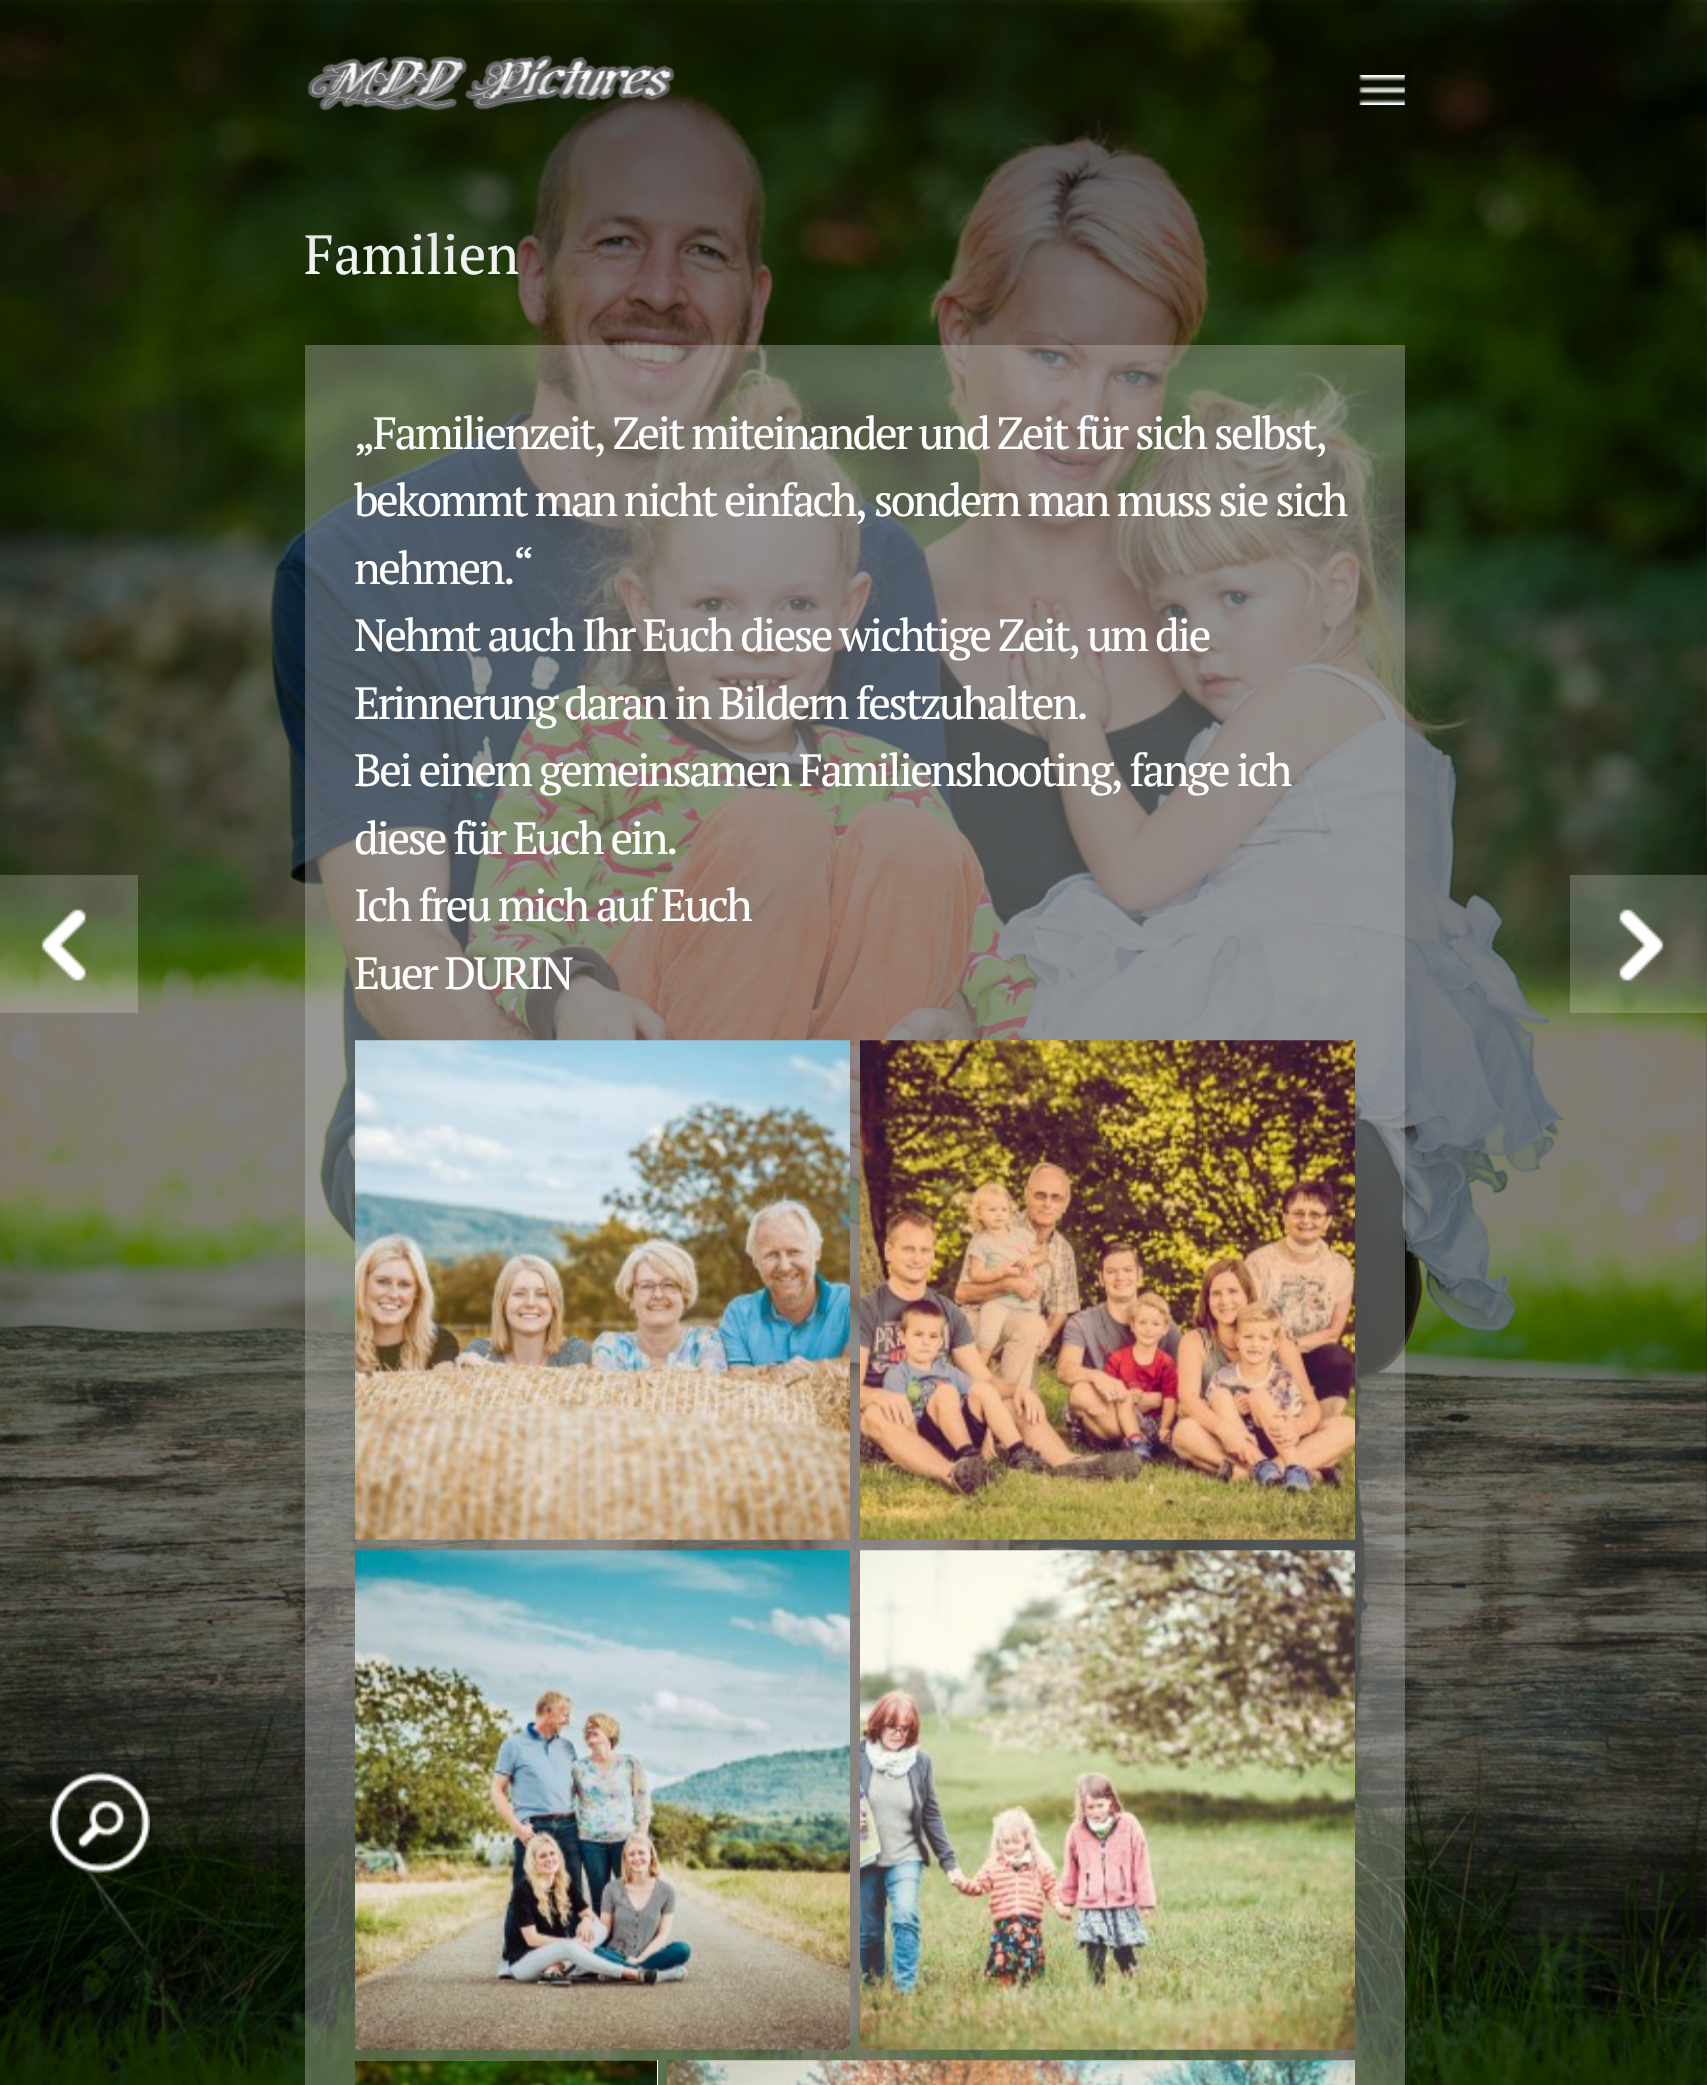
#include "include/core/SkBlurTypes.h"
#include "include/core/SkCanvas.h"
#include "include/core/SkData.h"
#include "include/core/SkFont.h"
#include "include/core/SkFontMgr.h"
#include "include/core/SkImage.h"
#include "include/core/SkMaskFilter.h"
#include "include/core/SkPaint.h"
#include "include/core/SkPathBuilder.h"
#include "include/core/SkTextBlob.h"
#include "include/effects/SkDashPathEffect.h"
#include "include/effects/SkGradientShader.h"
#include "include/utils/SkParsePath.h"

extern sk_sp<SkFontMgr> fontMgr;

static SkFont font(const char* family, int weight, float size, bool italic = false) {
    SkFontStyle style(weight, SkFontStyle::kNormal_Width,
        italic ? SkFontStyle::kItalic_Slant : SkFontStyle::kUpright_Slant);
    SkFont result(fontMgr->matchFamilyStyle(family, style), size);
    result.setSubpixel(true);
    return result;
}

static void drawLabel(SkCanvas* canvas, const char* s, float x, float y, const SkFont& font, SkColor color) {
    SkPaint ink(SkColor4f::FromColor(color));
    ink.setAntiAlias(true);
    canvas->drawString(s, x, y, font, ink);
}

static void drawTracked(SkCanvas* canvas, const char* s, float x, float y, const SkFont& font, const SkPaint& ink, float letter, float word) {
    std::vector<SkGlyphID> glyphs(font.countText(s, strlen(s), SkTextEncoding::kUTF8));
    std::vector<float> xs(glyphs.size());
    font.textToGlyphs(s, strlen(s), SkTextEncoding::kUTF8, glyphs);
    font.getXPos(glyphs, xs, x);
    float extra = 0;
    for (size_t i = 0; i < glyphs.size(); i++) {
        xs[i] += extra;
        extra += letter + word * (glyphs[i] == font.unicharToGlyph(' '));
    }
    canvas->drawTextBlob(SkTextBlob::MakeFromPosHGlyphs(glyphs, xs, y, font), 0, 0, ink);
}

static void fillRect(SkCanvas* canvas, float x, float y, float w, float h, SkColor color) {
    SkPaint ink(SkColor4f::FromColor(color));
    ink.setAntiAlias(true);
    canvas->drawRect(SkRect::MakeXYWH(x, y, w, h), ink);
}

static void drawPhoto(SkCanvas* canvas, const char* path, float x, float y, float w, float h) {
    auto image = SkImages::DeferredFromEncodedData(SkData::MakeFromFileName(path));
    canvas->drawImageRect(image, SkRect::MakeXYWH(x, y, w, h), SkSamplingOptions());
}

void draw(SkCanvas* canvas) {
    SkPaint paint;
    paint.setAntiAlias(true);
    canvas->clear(0xFFFFFFFF);
    drawPhoto(canvas, "assets/img2.png", 1706, 0, 1, 2085);
    drawPhoto(canvas, "assets/img1.png", 0, 0, 1707, 2085);
    SkFont font1 = font("PT Serif", 400, 55);
    drawLabel(canvas, "Familien", 304, 274, font1, 0xFFFFFFFF);
    drawPhoto(canvas, "assets/img3.png", 0, 0, 1707, 277);
    drawPhoto(canvas, "assets/img4.png", 307, 55, 368, 56);
    drawPhoto(canvas, "assets/img5.png", 1359, 75, 46, 30);
    fillRect(canvas, 305, 345, 1100, 1740, 0x59C7C7C7);
    SkFont font2 = font("PT Serif", 400, 45);
    paint.setColor(0xFFFFFFFF);
    drawTracked(canvas, "„Familienzeit, Zeit miteinander und Zeit für sich selbst,", 354, 449, font2, paint, -2.5f, 0);
    drawTracked(canvas, "bekommt man nicht einfach, sondern man muss sie sich", 354, 516, font2, paint, -2.5f, 0);
    drawTracked(canvas, "nehmen.“", 354, 584, font2, paint, -2.5f, 0);
    drawTracked(canvas, "Nehmt auch Ihr Euch diese wichtige Zeit, um die", 354, 651, font2, paint, -2.5f, 0);
    drawTracked(canvas, "Erinnerung daran in Bildern festzuhalten.", 354, 719, font2, paint, -2.5f, 0);
    drawTracked(canvas, "Bei einem gemeinsamen Familienshooting, fange ich", 354, 786, font2, paint, -2.5f, 0);
    drawTracked(canvas, "diese für Euch ein.", 354, 854, font2, paint, -2.5f, 0);
    drawTracked(canvas, "Ich freu mich auf Euch", 354, 921, font2, paint, -2.5f, 0);
    drawTracked(canvas, "Euer DURIN", 354, 989, font2, paint, -2.5f, 0);
    drawPhoto(canvas, "assets/img6.png", 355, 1040, 495, 500);
    drawPhoto(canvas, "assets/img7.png", 860, 1040, 495, 500);
    drawPhoto(canvas, "assets/img8.png", 355, 1550, 495, 500);
    drawPhoto(canvas, "assets/img9.png", 860, 1550, 495, 500);
    fillRect(canvas, 355, 2060, 303, 25, 0xFFFFFFFF);
    drawPhoto(canvas, "assets/img10.png", 355, 2060, 302, 25);
    drawPhoto(canvas, "assets/img11.png", 667, 2060, 688, 25);
    fillRect(canvas, 0, 875, 138, 138, 0x33FFFFFF);
    drawPhoto(canvas, "assets/img12.png", 41, 909, 45, 72);
    fillRect(canvas, 1570, 875, 137, 138, 0x33FFFFFF);
    drawPhoto(canvas, "assets/img13.png", 1619, 909, 45, 72);
    drawPhoto(canvas, "assets/img14.png", 50, 1771, 100, 102);
}
